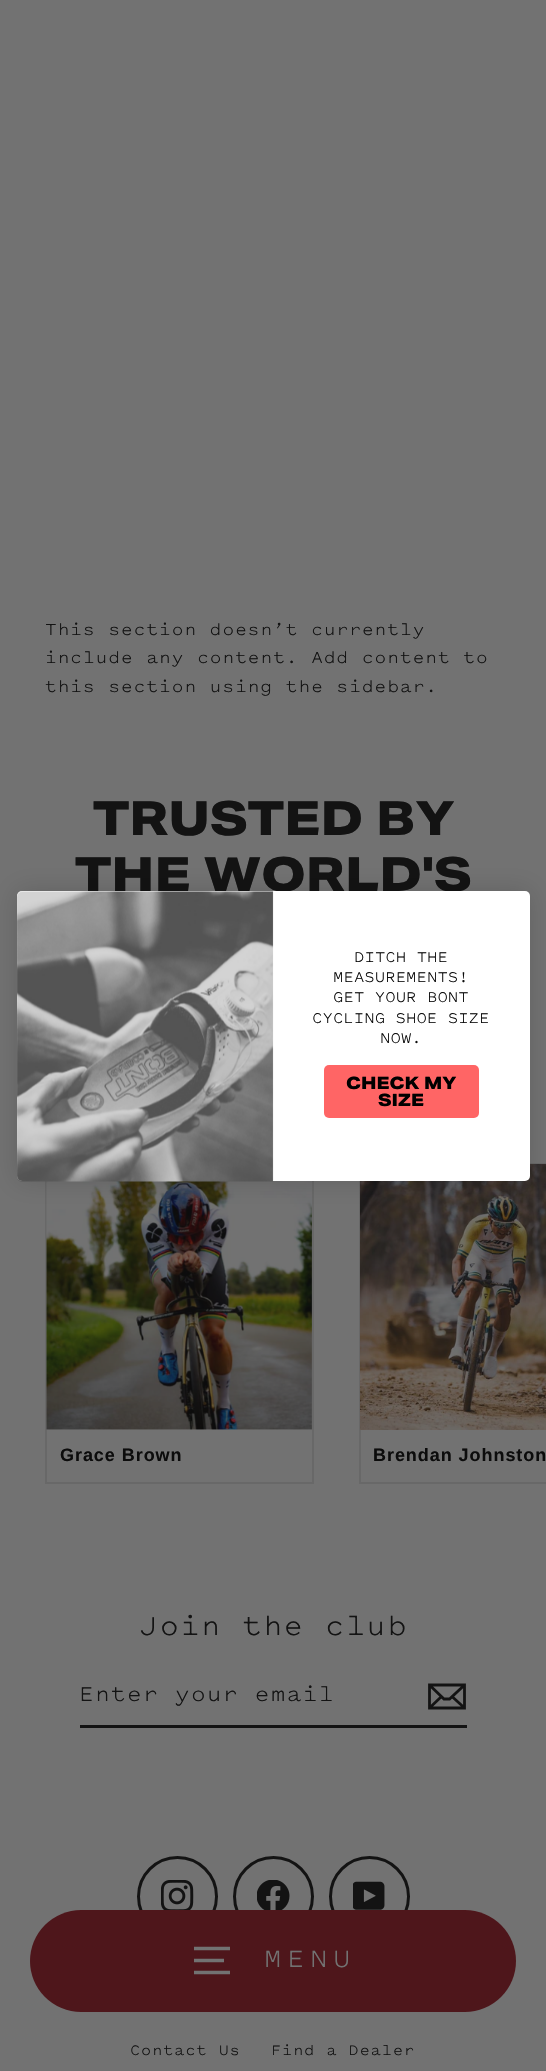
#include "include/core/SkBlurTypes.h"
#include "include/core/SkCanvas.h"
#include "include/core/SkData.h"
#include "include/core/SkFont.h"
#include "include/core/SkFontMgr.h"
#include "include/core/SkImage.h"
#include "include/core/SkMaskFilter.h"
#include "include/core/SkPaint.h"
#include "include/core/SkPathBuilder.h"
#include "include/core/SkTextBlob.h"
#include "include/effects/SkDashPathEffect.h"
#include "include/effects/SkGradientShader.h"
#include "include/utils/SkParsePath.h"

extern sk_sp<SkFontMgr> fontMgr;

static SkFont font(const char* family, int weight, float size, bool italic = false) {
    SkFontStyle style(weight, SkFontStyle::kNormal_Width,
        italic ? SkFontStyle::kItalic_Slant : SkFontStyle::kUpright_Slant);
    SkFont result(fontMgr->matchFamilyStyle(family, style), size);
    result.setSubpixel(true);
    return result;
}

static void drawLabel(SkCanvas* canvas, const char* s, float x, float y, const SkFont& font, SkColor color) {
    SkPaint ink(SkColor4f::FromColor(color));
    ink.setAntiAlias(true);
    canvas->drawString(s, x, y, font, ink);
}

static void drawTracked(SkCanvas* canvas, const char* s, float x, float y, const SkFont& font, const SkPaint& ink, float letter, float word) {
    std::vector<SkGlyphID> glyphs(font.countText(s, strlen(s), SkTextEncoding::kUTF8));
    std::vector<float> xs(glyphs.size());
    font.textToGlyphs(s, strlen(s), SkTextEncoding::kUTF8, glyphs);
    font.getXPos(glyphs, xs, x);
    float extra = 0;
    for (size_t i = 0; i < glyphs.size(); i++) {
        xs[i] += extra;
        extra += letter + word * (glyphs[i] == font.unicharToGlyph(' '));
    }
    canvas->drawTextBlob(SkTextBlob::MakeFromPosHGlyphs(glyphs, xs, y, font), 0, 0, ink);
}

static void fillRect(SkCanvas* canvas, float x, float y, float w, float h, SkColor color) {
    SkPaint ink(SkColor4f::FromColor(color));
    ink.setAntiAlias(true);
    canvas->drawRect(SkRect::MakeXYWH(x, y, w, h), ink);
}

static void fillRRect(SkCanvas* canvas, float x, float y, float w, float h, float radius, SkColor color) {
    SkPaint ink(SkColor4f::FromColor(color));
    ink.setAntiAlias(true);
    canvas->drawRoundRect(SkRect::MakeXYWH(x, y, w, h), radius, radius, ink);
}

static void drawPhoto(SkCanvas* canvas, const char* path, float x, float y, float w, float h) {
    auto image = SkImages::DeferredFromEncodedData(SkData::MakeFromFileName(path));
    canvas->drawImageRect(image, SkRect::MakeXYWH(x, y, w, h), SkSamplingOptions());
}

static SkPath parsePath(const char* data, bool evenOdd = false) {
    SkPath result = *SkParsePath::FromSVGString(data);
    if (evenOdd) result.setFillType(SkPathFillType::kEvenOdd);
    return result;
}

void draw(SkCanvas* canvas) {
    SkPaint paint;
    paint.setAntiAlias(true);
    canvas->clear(0xFF727272);
    SkFont font1 = font("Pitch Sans", 400, 19.1f);
    paint.setColor(0xFF131313);
    drawTracked(canvas, "This section doesn’t currently", 45, 635, font1, paint, 0.95f, 0);
    drawTracked(canvas, "include any content. Add content to", 45, 663, font1, paint, 0.95f, 0);
    drawTracked(canvas, "this section using the sidebar.", 45, 692, font1, paint, 0.95f, 0);
    SkFont font2 = font("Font", 800, 47.25f);
    drawLabel(canvas, "TRUSTED BY", 93, 835, font2, 0xFF131313);
    drawLabel(canvas, "THE WORLD'S", 75, 891, font2, 0xFF131313);
    paint.setStroke(true);
    paint.setStrokeWidth(2);
    paint.setColor(0xFF686868);
    canvas->drawRect(SkRect::MakeXYWH(46, 1164, 267, 319), paint);
    drawPhoto(canvas, "assets/img1.png", 46, 1181, 266, 249);
    SkFont font3 = font("Liberation Sans", 700, 18);
    paint.setStroke(false);
    paint.setColor(0xFF0C0C0C);
    drawTracked(canvas, "Grace Brown", 60, 1461, font3, paint, 0.95f, 0);
    paint.setStroke(true);
    paint.setColor(0xFF686868);
    canvas->drawRect(SkRect::MakeXYWH(360, 1164, 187, 319), paint);
    drawPhoto(canvas, "assets/img2.png", 360, 1164, 186, 266);
    paint.setStroke(false);
    paint.setColor(0xFF0C0C0C);
    drawTracked(canvas, "Brendan Johnston", 373, 1461, font3, paint, 0.95f, 0);
    SkFont font4 = font("Pitch Sans", 400, 31.25f);
    paint.setColor(0xFF131313);
    drawTracked(canvas, "Join the club", 139, 1635, font4, paint, 1.5f, 0);
    fillRect(canvas, 80, 1725, 387, 3, 0xFF131313);
    SkFont font5 = font("Pitch Sans", 400, 24);
    drawTracked(canvas, "Enter your email", 79, 1701, font5, paint, 1.25f, 0);
    paint.setStroke(true);
    paint.setStrokeWidth(2.8f);
    canvas->drawPath(parsePath("M464.5 1708H429.5V1685H464.5ZM429.5 1685L444 1699H449.5L464.5 1685M441.5 1696.5L430 1707.5M464 1707.5L452 1696.5"), paint);
    paint.setStrokeWidth(3);
    canvas->drawCircle(177.5f, 1896.5f, 39, paint);
    drawPhoto(canvas, "assets/img3.png", 161, 1880, 33, 30);
    canvas->drawCircle(273.5f, 1896.5f, 39, paint);
    drawPhoto(canvas, "assets/img4.png", 257, 1880, 33, 30);
    canvas->drawCircle(369.5f, 1896.5f, 39, paint);
    drawPhoto(canvas, "assets/img5.png", 353, 1881, 32, 29);
    SkFont font6 = font("Pitch Sans", 400, 16.5f);
    paint.setStroke(false);
    drawTracked(canvas, "Contact Us", 130, 2055, font6, paint, 0.95f, 0);
    drawTracked(canvas, "Find a Dealer", 271, 2055, font6, paint, 0.95f, 0);
    fillRRect(canvas, 30, 1910, 486, 102, 51, 0xFF4E161B);
    paint.setStroke(true);
    paint.setStrokeWidth(3.5f);
    paint.setColor(0xFF727272);
    canvas->drawPath(parsePath("M194 1948.5H230M194 1960.5H224M194 1972.5H230"), paint);
    SkFont font7 = font("Pitch Sans", 400, 28.5f);
    paint.setStroke(false);
    drawTracked(canvas, "MENU", 264, 1967, font7, paint, 5.5f, 0);
    paint.setColor(0x26000000);
    paint.setMaskFilter(SkMaskFilter::MakeBlur(kNormal_SkBlurStyle, 13));
    canvas->drawRoundRect(SkRect::MakeXYWH(17, 891, 513, 290), 5, 5, paint);
    paint.setMaskFilter(nullptr);
    fillRRect(canvas, 17, 891, 513, 290, 5, 0xFFFFFFFF);
    drawPhoto(canvas, "assets/img6.png", 17, 891, 257, 291);
    SkFont font8 = font("Pitch Sans", 400, 17);
    drawLabel(canvas, "DITCH THE", 354, 962, font8, 0xFF0C0C0C);
    drawLabel(canvas, "MEASUREMENTS!", 333, 982, font8, 0xFF0C0C0C);
    drawLabel(canvas, "GET YOUR BONT", 333, 1002, font8, 0xFF0C0C0C);
    drawLabel(canvas, "CYCLING SHOE SIZE", 312, 1023, font8, 0xFF0C0C0C);
    drawLabel(canvas, "NOW.", 380, 1043, font8, 0xFF0C0C0C);
    fillRRect(canvas, 324, 1065, 155, 53, 5, 0xFFFF6565);
    SkFont font9 = font("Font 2", 800, 17);
    drawLabel(canvas, "CHECK MY", 346, 1089, font9, 0xFF000000);
    drawLabel(canvas, "SIZE", 378, 1106, font9, 0xFF000000);
}
